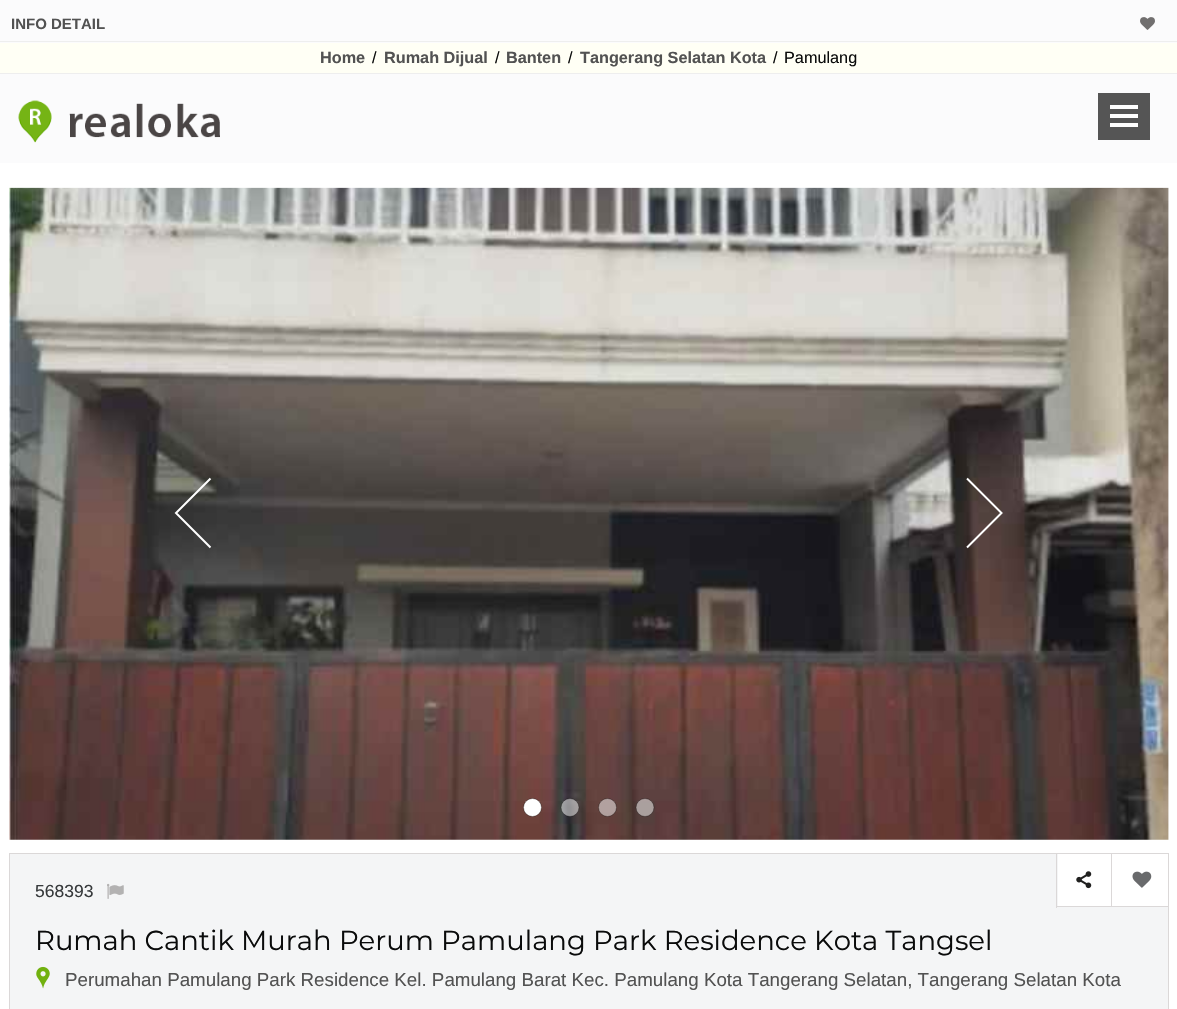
#include "include/core/SkBlurTypes.h"
#include "include/core/SkCanvas.h"
#include "include/core/SkData.h"
#include "include/core/SkFont.h"
#include "include/core/SkFontMgr.h"
#include "include/core/SkImage.h"
#include "include/core/SkMaskFilter.h"
#include "include/core/SkPaint.h"
#include "include/core/SkPathBuilder.h"
#include "include/core/SkTextBlob.h"
#include "include/effects/SkDashPathEffect.h"
#include "include/effects/SkGradientShader.h"
#include "include/utils/SkParsePath.h"

extern sk_sp<SkFontMgr> fontMgr;

static SkFont font(const char* family, int weight, float size, bool italic = false) {
    SkFontStyle style(weight, SkFontStyle::kNormal_Width,
        italic ? SkFontStyle::kItalic_Slant : SkFontStyle::kUpright_Slant);
    SkFont result(fontMgr->matchFamilyStyle(family, style), size);
    result.setSubpixel(true);
    return result;
}

static void drawLabel(SkCanvas* canvas, const char* s, float x, float y, const SkFont& font, SkColor color) {
    SkPaint ink(SkColor4f::FromColor(color));
    ink.setAntiAlias(true);
    canvas->drawString(s, x, y, font, ink);
}

static void fillRect(SkCanvas* canvas, float x, float y, float w, float h, SkColor color) {
    SkPaint ink(SkColor4f::FromColor(color));
    ink.setAntiAlias(true);
    canvas->drawRect(SkRect::MakeXYWH(x, y, w, h), ink);
}

static void drawPhoto(SkCanvas* canvas, const char* path, float x, float y, float w, float h) {
    auto image = SkImages::DeferredFromEncodedData(SkData::MakeFromFileName(path));
    canvas->drawImageRect(image, SkRect::MakeXYWH(x, y, w, h), SkSamplingOptions());
}

static SkPath parsePath(const char* data, bool evenOdd = false) {
    SkPath result = *SkParsePath::FromSVGString(data);
    if (evenOdd) result.setFillType(SkPathFillType::kEvenOdd);
    return result;
}

void draw(SkCanvas* canvas) {
    SkPaint paint;
    paint.setAntiAlias(true);
    canvas->clear(0xFFFFFFFF);
    fillRect(canvas, 0, 0, 1177, 43, 0xFFFBFBFC);
    fillRect(canvas, 0, 41, 1177, 1, 0xFFEEEEEE);
    SkFont font1 = font("Liberation Sans", 700, 15);
    drawLabel(canvas, "INFO DETAIL", 11, 29, font1, 0xFF525252);
    drawPhoto(canvas, "assets/img1.png", 1140, 17, 15, 13);
    fillRect(canvas, 0, 43, 1177, 30, 0xFFFFFFF5);
    fillRect(canvas, 0, 73, 1177, 1, 0xFFEEEEEE);
    SkFont font2 = font("Liberation Sans", 700, 16.25f);
    drawLabel(canvas, "Home", 320, 63, font2, 0xFF525252);
    SkFont font3 = font("Liberation Sans", 400, 16.25f);
    drawLabel(canvas, "/", 372, 63, font3, 0xFF0A0B0B);
    drawLabel(canvas, "Rumah Dijual", 384, 63, font2, 0xFF525252);
    drawLabel(canvas, "/", 495, 63, font3, 0xFF0A0B0B);
    drawLabel(canvas, "Banten", 506, 63, font2, 0xFF525252);
    drawLabel(canvas, "/", 568, 63, font3, 0xFF0A0B0B);
    drawLabel(canvas, "Tangerang Selatan Kota", 580, 63, font2, 0xFF525252);
    drawLabel(canvas, "/", 773, 63, font3, 0xFF0A0B0B);
    drawLabel(canvas, "Pamulang", 784, 63, font3, 0xFF0A0B0B);
    fillRect(canvas, 0, 74, 1177, 89, 0xFFFBFBFC);
    drawPhoto(canvas, "assets/img2.png", 18, 100, 202, 43);
    fillRect(canvas, 1098, 93, 52, 47, 0xFF555555);
    fillRect(canvas, 1110, 114, 28, 4, 0xFFFFFFFF);
    fillRect(canvas, 1110, 105, 28, 4, 0xFFFFFFFF);
    fillRect(canvas, 1110, 123, 28, 4, 0xFFFFFFFF);
    drawPhoto(canvas, "assets/img3.png", 9, 187, 1160, 653);
    paint.setStroke(true);
    paint.setStrokeWidth(2);
    paint.setColor(0xFFFFFFFF);
    canvas->drawPath(parsePath("M210.5 478.5L176 513L210.5 547.5"), paint);
    canvas->drawPath(parsePath("M967 478.5L1001.5 513L967 547.5"), paint);
    paint.setStroke(false);
    canvas->drawCircle(532.5f, 807.5f, 9, paint);
    paint.setStroke(true);
    paint.setStrokeWidth(0.6f);
    paint.setColor(0x80000000);
    canvas->drawCircle(532.5f, 807.5f, 9, paint);
    paint.setStroke(false);
    paint.setColor(0x80FFFFFF);
    canvas->drawCircle(570, 807.5f, 9, paint);
    paint.setStroke(true);
    paint.setColor(0x80000000);
    canvas->drawCircle(570, 807.5f, 9, paint);
    paint.setStroke(false);
    paint.setColor(0x80FFFFFF);
    canvas->drawCircle(607.5f, 807.5f, 9, paint);
    paint.setStroke(true);
    paint.setColor(0x80000000);
    canvas->drawCircle(607.5f, 807.5f, 9, paint);
    paint.setStroke(false);
    paint.setColor(0x80FFFFFF);
    canvas->drawCircle(645, 807.5f, 9, paint);
    paint.setStroke(true);
    paint.setColor(0x80000000);
    canvas->drawCircle(645, 807.5f, 9, paint);
    fillRect(canvas, 10, 854, 1158, 155, 0xFFF4F5F6);
    fillRect(canvas, 9, 853, 1160, 1, 0xFFDBD8D8);
    fillRect(canvas, 1168, 853, 1, 156, 0xFFDBD8D8);
    fillRect(canvas, 9, 853, 1, 156, 0xFFDBD8D8);
    SkFont font4 = font("Liberation Sans", 400, 17.5f);
    drawLabel(canvas, "568393", 35, 897, font4, 0xFF373A3C);
    drawPhoto(canvas, "assets/img4.png", 107, 883, 17, 16);
    fillRect(canvas, 1056, 906, 112, 1, 0xFFDBD8D8);
    fillRect(canvas, 1056, 854, 1, 54, 0xFFDBD8D8);
    fillRect(canvas, 1058, 854, 110, 52, 0xFFFFFFFF);
    fillRect(canvas, 1111, 854, 1, 52, 0xFFDBD8D8);
    drawPhoto(canvas, "assets/img5.png", 1076, 871, 16, 18);
    drawPhoto(canvas, "assets/img6.png", 1132, 871, 20, 17);
    SkFont font5 = font("Montserrat", 400, 27.5f);
    drawLabel(canvas, "Rumah Cantik Murah Perum Pamulang Park Residence Kota Tangsel", 35, 950, font5, 0xFF0A0B0B);
    drawPhoto(canvas, "assets/img7.png", 36, 966, 14, 23);
    SkFont font6 = font("Liberation Sans", 400, 18.75f);
    drawLabel(canvas, "Perumahan Pamulang Park Residence Kel. Pamulang Barat Kec. Pamulang Kota Tangerang Selatan, Tangerang Selatan Kota", 65, 986, font6, 0xFF525252);
}
